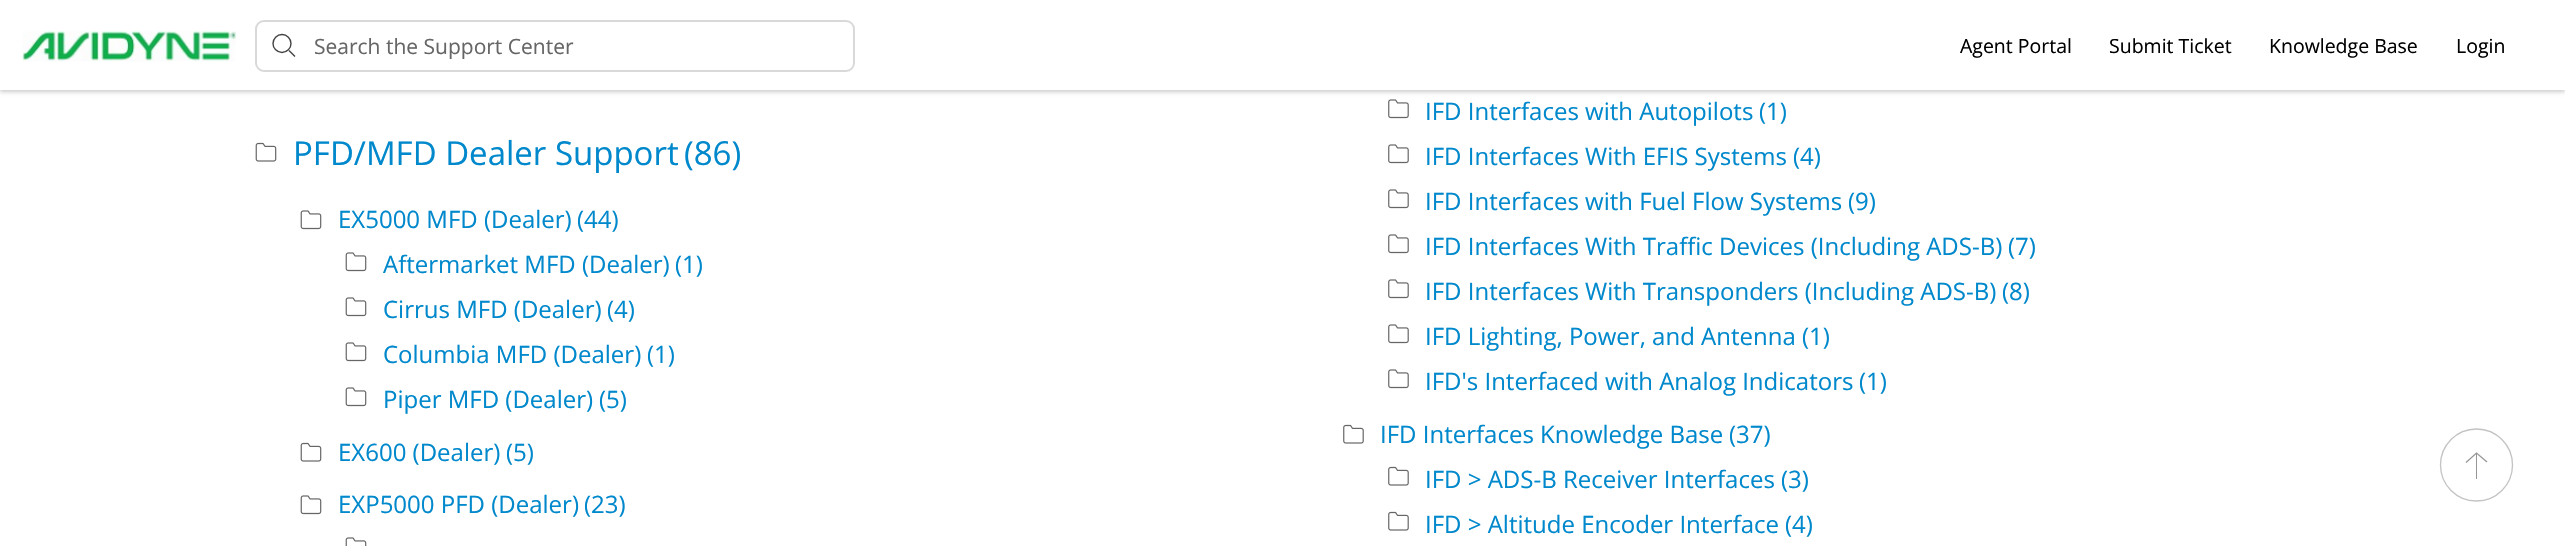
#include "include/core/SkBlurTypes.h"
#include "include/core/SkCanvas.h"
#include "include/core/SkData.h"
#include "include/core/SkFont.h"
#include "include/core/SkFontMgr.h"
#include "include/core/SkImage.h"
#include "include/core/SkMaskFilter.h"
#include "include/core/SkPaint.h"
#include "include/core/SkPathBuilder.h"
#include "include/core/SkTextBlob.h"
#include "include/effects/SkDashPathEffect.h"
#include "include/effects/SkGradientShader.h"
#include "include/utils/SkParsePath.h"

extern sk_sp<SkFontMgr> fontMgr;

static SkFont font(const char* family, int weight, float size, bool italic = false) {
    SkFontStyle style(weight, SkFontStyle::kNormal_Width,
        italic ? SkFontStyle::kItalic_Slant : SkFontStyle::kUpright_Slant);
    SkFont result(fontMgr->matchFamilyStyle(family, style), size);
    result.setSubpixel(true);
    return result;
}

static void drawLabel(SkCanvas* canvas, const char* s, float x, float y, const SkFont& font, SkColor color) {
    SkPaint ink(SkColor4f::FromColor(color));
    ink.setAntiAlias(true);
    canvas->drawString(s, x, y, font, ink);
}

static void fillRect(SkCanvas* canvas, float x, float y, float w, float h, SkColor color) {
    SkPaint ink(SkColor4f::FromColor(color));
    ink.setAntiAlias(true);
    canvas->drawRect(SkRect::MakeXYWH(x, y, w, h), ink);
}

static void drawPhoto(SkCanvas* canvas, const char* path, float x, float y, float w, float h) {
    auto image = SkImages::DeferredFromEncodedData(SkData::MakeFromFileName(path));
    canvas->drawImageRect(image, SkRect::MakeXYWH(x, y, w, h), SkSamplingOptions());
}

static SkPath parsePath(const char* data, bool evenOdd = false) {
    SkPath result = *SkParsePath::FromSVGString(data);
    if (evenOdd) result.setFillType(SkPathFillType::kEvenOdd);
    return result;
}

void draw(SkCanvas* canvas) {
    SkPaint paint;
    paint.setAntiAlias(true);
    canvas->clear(0xFFFFFFFF);
    paint.setColor(0x33000000);
    paint.setMaskFilter(SkMaskFilter::MakeBlur(kNormal_SkBlurStyle, 2));
    canvas->drawRect(SkRect::MakeXYWH(0, 2, 2565, 90), paint);
    paint.setMaskFilter(nullptr);
    fillRect(canvas, 0, 0, 2565, 90, 0xFFFFFFFF);
    drawPhoto(canvas, "assets/img1.png", 22, 31, 214, 31);
    paint.setStroke(true);
    paint.setStrokeWidth(1.4f);
    paint.setColor(0xFF424242);
    canvas->drawCircle(282, 43.5f, 9, paint);
    paint.setStrokeCap(SkPaint::kSquare_Cap);
    canvas->drawPath(parsePath("M289.5 51L294.5 56"), paint);
    paint.setStrokeWidth(2);
    paint.setStrokeCap(SkPaint::kButt_Cap);
    paint.setColor(0xFFD9D9D9);
    canvas->drawRoundRect(SkRect::MakeXYWH(256, 21, 598, 50), 8, 8, paint);
    SkFont font1 = font("Open Sans", 400, 21);
    drawLabel(canvas, "Search the Support Center", 314, 54, font1, 0xFF666666);
    SkFont font2 = font("Open Sans", 400, 19.5f);
    drawLabel(canvas, "Agent Portal", 1960, 53, font2, 0xFF000000);
    drawLabel(canvas, "Submit Ticket", 2109, 53, font2, 0xFF000000);
    drawLabel(canvas, "Knowledge Base", 2269, 53, font2, 0xFF000000);
    drawLabel(canvas, "Login", 2456, 53, font2, 0xFF000000);
    drawPhoto(canvas, "assets/img2.png", 255, 142, 22, 20);
    SkFont font3 = font("Open Sans", 400, 33);
    drawLabel(canvas, "PFD/MFD Dealer Support", 293, 165, font3, 0xFF0088CC);
    drawLabel(canvas, "(86)", 684, 165, font3, 0xFF0088CC);
    drawPhoto(canvas, "assets/img3.png", 300, 210, 22, 20);
    SkFont font4 = font("Open Sans", 400, 24);
    drawLabel(canvas, "EX5000 MFD (Dealer)", 338, 228, font4, 0xFF0088CC);
    drawLabel(canvas, "(44)", 577, 228, font4, 0xFF0088CC);
    drawPhoto(canvas, "assets/img3.png", 345, 252, 22, 20);
    drawLabel(canvas, "Aftermarket MFD (Dealer)", 383, 273, font4, 0xFF0088CC);
    drawLabel(canvas, "(1)", 675, 273, font4, 0xFF0088CC);
    drawPhoto(canvas, "assets/img3.png", 345, 297, 22, 20);
    drawLabel(canvas, "Cirrus MFD (Dealer)", 383, 318, font4, 0xFF0088CC);
    drawLabel(canvas, "(4)", 607, 318, font4, 0xFF0088CC);
    drawPhoto(canvas, "assets/img3.png", 345, 342, 22, 20);
    drawLabel(canvas, "Columbia MFD (Dealer)", 383, 363, font4, 0xFF0088CC);
    drawLabel(canvas, "(1)", 647, 363, font4, 0xFF0088CC);
    drawPhoto(canvas, "assets/img3.png", 345, 387, 22, 20);
    drawLabel(canvas, "Piper MFD (Dealer)", 383, 408, font4, 0xFF0088CC);
    drawLabel(canvas, "(5)", 599, 408, font4, 0xFF0088CC);
    drawPhoto(canvas, "assets/img2.png", 300, 442, 22, 20);
    drawLabel(canvas, "EX600 (Dealer)", 338, 461, font4, 0xFF0088CC);
    drawLabel(canvas, "(5)", 506, 461, font4, 0xFF0088CC);
    drawPhoto(canvas, "assets/img3.png", 300, 495, 22, 20);
    drawLabel(canvas, "EXP5000 PFD (Dealer)", 338, 513, font4, 0xFF0088CC);
    drawLabel(canvas, "(23)", 584, 513, font4, 0xFF0088CC);
    drawPhoto(canvas, "assets/img4.png", 345, 537, 22, 9);
    drawPhoto(canvas, "assets/img5.png", 1388, 99, 21, 20);
    drawLabel(canvas, "IFD Interfaces with Autopilots", 1425, 120, font4, 0xFF0088CC);
    drawLabel(canvas, "(1)", 1759, 120, font4, 0xFF0088CC);
    drawPhoto(canvas, "assets/img5.png", 1388, 144, 21, 20);
    drawLabel(canvas, "IFD Interfaces With EFIS Systems", 1425, 165, font4, 0xFF0088CC);
    drawLabel(canvas, "(4)", 1793, 165, font4, 0xFF0088CC);
    drawPhoto(canvas, "assets/img5.png", 1388, 189, 21, 20);
    drawLabel(canvas, "IFD Interfaces with Fuel Flow Systems", 1425, 210, font4, 0xFF0088CC);
    drawLabel(canvas, "(9)", 1848, 210, font4, 0xFF0088CC);
    drawPhoto(canvas, "assets/img5.png", 1388, 234, 21, 20);
    drawLabel(canvas, "IFD Interfaces With Traffic Devices (Including ADS-B)", 1425, 255, font4, 0xFF0088CC);
    drawLabel(canvas, "(7)", 2008, 255, font4, 0xFF0088CC);
    drawPhoto(canvas, "assets/img5.png", 1388, 279, 21, 20);
    drawLabel(canvas, "IFD Interfaces With Transponders (Including ADS-B)", 1425, 300, font4, 0xFF0088CC);
    drawLabel(canvas, "(8)", 2002, 300, font4, 0xFF0088CC);
    drawPhoto(canvas, "assets/img5.png", 1388, 324, 21, 20);
    drawLabel(canvas, "IFD Lighting, Power, and Antenna", 1425, 345, font4, 0xFF0088CC);
    drawLabel(canvas, "(1)", 1802, 345, font4, 0xFF0088CC);
    drawPhoto(canvas, "assets/img5.png", 1388, 369, 21, 20);
    drawLabel(canvas, "IFD's Interfaced with Analog Indicators", 1425, 390, font4, 0xFF0088CC);
    drawLabel(canvas, "(1)", 1859, 390, font4, 0xFF0088CC);
    drawPhoto(canvas, "assets/img6.png", 1343, 424, 21, 20);
    drawLabel(canvas, "IFD Interfaces Knowledge Base", 1380, 443, font4, 0xFF0088CC);
    drawLabel(canvas, "(37)", 1729, 443, font4, 0xFF0088CC);
    drawPhoto(canvas, "assets/img6.png", 1388, 466, 21, 20);
    drawLabel(canvas, "IFD > ADS-B Receiver Interfaces", 1425, 488, font4, 0xFF0088CC);
    drawLabel(canvas, "(3)", 1781, 488, font4, 0xFF0088CC);
    drawPhoto(canvas, "assets/img6.png", 1388, 511, 21, 20);
    drawLabel(canvas, "IFD > Altitude Encoder Interface", 1425, 533, font4, 0xFF0088CC);
    drawLabel(canvas, "(4)", 1785, 533, font4, 0xFF0088CC);
    paint.setStrokeWidth(1.3f);
    paint.setColor(0xFFC3C3C3);
    canvas->drawCircle(2476.5f, 465, 36, paint);
    fillRect(canvas, 2476, 454, 1, 25, 0xFF979797);
    paint.setColor(0xFF979797);
    canvas->drawPath(parsePath("M2466 462.5L2476.5 453L2487 462"), paint);
}
